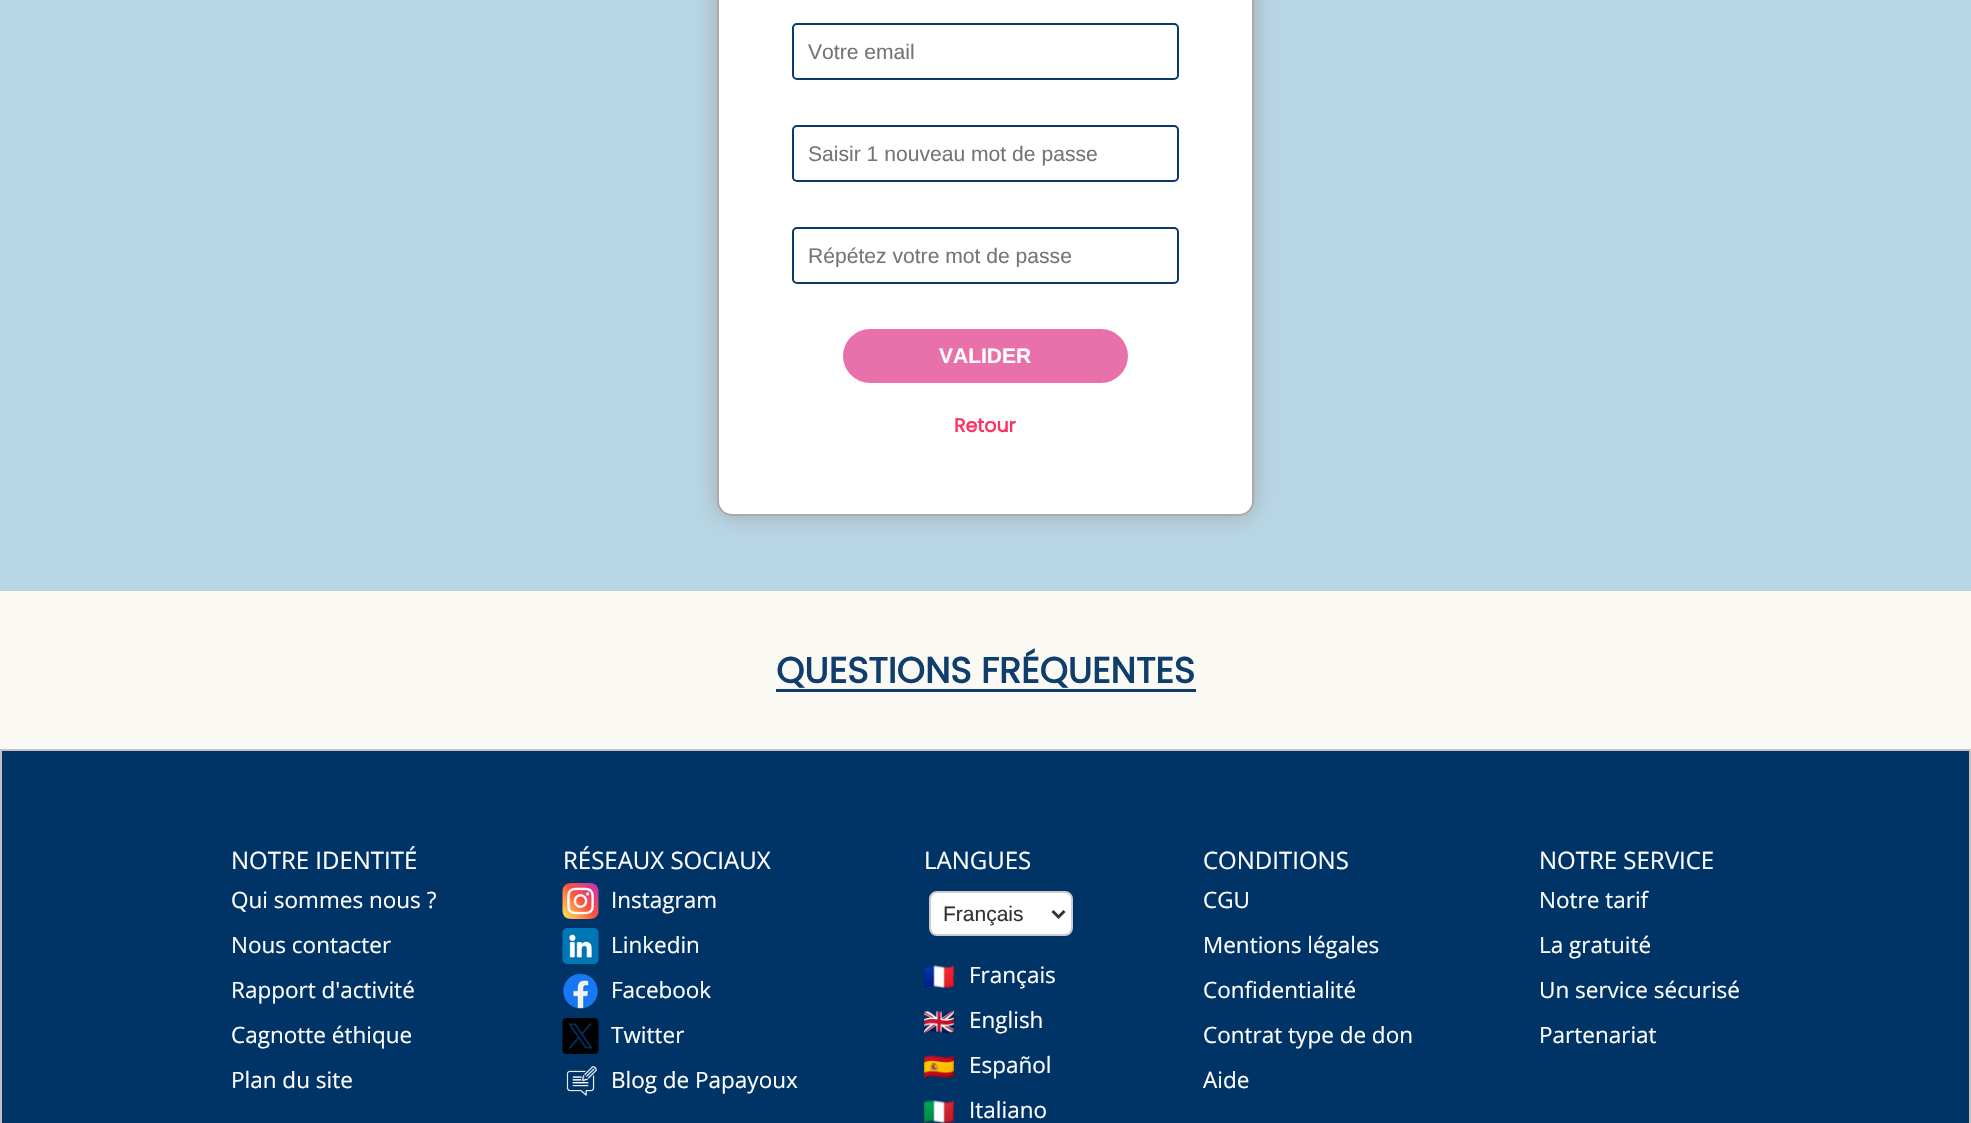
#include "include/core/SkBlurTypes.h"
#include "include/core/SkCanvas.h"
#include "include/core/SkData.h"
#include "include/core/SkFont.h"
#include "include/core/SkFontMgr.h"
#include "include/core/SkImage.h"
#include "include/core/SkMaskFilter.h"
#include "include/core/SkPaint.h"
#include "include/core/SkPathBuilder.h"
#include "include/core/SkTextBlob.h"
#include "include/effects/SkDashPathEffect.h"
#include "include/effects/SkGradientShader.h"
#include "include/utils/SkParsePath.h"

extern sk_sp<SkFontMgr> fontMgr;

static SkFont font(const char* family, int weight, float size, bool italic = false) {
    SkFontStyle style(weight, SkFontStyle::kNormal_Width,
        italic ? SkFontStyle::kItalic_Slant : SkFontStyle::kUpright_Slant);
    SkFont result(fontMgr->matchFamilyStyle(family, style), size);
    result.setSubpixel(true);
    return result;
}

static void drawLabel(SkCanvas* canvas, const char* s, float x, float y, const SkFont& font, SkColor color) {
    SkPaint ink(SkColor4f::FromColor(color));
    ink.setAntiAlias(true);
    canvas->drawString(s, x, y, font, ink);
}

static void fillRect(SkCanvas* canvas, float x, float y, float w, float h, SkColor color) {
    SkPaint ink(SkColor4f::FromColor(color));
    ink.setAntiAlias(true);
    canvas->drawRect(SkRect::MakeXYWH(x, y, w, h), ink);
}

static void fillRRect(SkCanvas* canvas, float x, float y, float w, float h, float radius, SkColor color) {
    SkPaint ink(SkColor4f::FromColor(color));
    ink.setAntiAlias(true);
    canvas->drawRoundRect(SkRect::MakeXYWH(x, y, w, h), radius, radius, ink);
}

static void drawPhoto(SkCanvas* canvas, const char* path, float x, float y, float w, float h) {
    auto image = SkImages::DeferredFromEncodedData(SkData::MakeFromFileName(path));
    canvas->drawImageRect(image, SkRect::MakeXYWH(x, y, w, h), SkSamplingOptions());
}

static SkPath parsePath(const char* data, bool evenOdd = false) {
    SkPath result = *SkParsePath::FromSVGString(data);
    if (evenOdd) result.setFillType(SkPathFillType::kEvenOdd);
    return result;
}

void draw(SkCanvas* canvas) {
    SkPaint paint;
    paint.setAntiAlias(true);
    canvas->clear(0xFFB7D6E6);
    paint.setColor(0xFFAAAAAA);
    paint.setMaskFilter(SkMaskFilter::MakeBlur(kNormal_SkBlurStyle, 11));
    canvas->drawRoundRect(SkRect::MakeXYWH(717, -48, 537, 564), 15, 15, paint);
    paint.setMaskFilter(nullptr);
    paint.setColor(0xFFFFFFFF);
    canvas->drawRoundRect(SkRect::MakeXYWH(718, -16, 535, 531), 14, 14, paint);
    paint.setStroke(true);
    paint.setStrokeWidth(2);
    paint.setColor(0xFFAAAAAA);
    canvas->drawRoundRect(SkRect::MakeXYWH(718, -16, 535, 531), 14, 14, paint);
    paint.setColor(0xFF0A3A6B);
    canvas->drawRoundRect(SkRect::MakeXYWH(793, 24, 385, 55), 4, 4, paint);
    SkFont font1 = font("Liberation Sans", 400, 21.1f);
    drawLabel(canvas, "Votre email", 808, 59, font1, 0xFF757575);
    canvas->drawRoundRect(SkRect::MakeXYWH(793, 126, 385, 55), 4, 4, paint);
    drawLabel(canvas, "Saisir 1 nouveau mot de passe", 808, 161, font1, 0xFF757575);
    canvas->drawRoundRect(SkRect::MakeXYWH(793, 228, 385, 55), 4, 4, paint);
    canvas->save();
    canvas->clipRect(SkRect::MakeXYWH(809, 243, 354, 24));
    drawLabel(canvas, "Répétez votre mot de passe", 808, 263, font1, 0xFF757575);
    canvas->restore();
    fillRRect(canvas, 843, 329, 285, 54, 27, 0xFFE971AB);
    SkFont font2 = font("Liberation Sans", 700, 21);
    drawLabel(canvas, "VALIDER", 939, 363, font2, 0xFFFFFFFF);
    SkFont font3 = font("Poppins", 700, 19);
    drawLabel(canvas, "Retour", 954, 432, font3, 0xFFFF3161);
    fillRect(canvas, 0, 591, 1971, 158, 0xFFFBF9F3);
    SkFont font4 = font("Poppins", 700, 36);
    drawLabel(canvas, "QUESTIONS FRÉQUENTES", 776, 683, font4, 0xFF0F3E6D);
    fillRect(canvas, 776, 689, 420, 3, 0xFF0F3E6D);
    paint.setStroke(false);
    paint.setColor(0xFF003366);
    canvas->drawRect(SkRect::MakeXYWH(1, 750, 1969, 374), paint);
    paint.setStroke(true);
    paint.setColor(0xFFC2C2C2);
    canvas->drawRect(SkRect::MakeXYWH(1, 750, 1969, 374), paint);
    SkFont font5 = font("Open Sans", 400, 24);
    drawLabel(canvas, "NOTRE IDENTITÉ", 231, 869, font5, 0xFFFFFFFF);
    SkFont font6 = font("Open Sans", 400, 22.5f);
    drawLabel(canvas, "Qui sommes nous ?", 231, 908, font6, 0xFFFFFFFF);
    drawLabel(canvas, "Nous contacter", 231, 953, font6, 0xFFFFFFFF);
    drawLabel(canvas, "Rapport d'activité", 231, 998, font6, 0xFFFFFFFF);
    drawLabel(canvas, "Cagnotte éthique", 231, 1043, font6, 0xFFFFFFFF);
    drawLabel(canvas, "Plan du site", 231, 1088, font6, 0xFFFFFFFF);
    drawLabel(canvas, "RÉSEAUX SOCIAUX", 563, 869, font5, 0xFFFFFFFF);
    drawPhoto(canvas, "assets/img1.png", 562, 883, 37, 36);
    drawLabel(canvas, "Instagram", 611, 908, font6, 0xFFFFFFFF);
    drawPhoto(canvas, "assets/img2.png", 562, 928, 37, 36);
    drawLabel(canvas, "Linkedin", 611, 953, font6, 0xFFFFFFFF);
    drawPhoto(canvas, "assets/img3.png", 563, 973, 35, 36);
    drawLabel(canvas, "Facebook", 611, 998, font6, 0xFFFFFFFF);
    drawPhoto(canvas, "assets/img4.png", 562, 1018, 37, 36);
    drawLabel(canvas, "Twitter", 611, 1043, font6, 0xFFFFFFFF);
    drawPhoto(canvas, "assets/img5.png", 566, 1066, 31, 30);
    drawLabel(canvas, "Blog de Papayoux", 611, 1088, font6, 0xFFFFFFFF);
    drawLabel(canvas, "LANGUES", 924, 869, font5, 0xFFFFFFFF);
    paint.setStroke(false);
    paint.setColor(0xFFFFFFFF);
    canvas->drawRoundRect(SkRect::MakeXYWH(930, 892, 142, 43), 7, 7, paint);
    paint.setStroke(true);
    paint.setColor(0xFFCCCCCC);
    canvas->drawRoundRect(SkRect::MakeXYWH(930, 892, 142, 43), 7, 7, paint);
    paint.setStrokeWidth(3);
    paint.setColor(0xFF333333);
    canvas->drawPath(parsePath("M1052.5 911L1058.5 917L1064.5 911"), paint);
    SkFont font7 = font("Liberation Sans", 400, 21);
    drawLabel(canvas, "Français", 943, 921, font7, 0xFF333333);
    drawPhoto(canvas, "assets/img6.png", 924, 965, 30, 23);
    drawLabel(canvas, "Français", 969, 983, font6, 0xFFFFFFFF);
    drawPhoto(canvas, "assets/img7.png", 924, 1010, 30, 23);
    drawLabel(canvas, "English", 969, 1028, font6, 0xFFFFFFFF);
    drawPhoto(canvas, "assets/img8.png", 924, 1055, 30, 23);
    drawLabel(canvas, "Español", 969, 1073, font6, 0xFFFFFFFF);
    drawPhoto(canvas, "assets/img9.png", 924, 1100, 30, 23);
    drawLabel(canvas, "Italiano", 969, 1118, font6, 0xFFFFFFFF);
    drawLabel(canvas, "CONDITIONS", 1203, 869, font5, 0xFFFFFFFF);
    drawLabel(canvas, "CGU", 1203, 908, font6, 0xFFFFFFFF);
    drawLabel(canvas, "Mentions légales", 1203, 953, font6, 0xFFFFFFFF);
    drawLabel(canvas, "Confidentialité", 1203, 998, font6, 0xFFFFFFFF);
    drawLabel(canvas, "Contrat type de don", 1203, 1043, font6, 0xFFFFFFFF);
    drawLabel(canvas, "Aide", 1203, 1088, font6, 0xFFFFFFFF);
    drawLabel(canvas, "NOTRE SERVICE", 1539, 869, font5, 0xFFFFFFFF);
    drawLabel(canvas, "Notre tarif", 1539, 908, font6, 0xFFFFFFFF);
    drawLabel(canvas, "La gratuité", 1539, 953, font6, 0xFFFFFFFF);
    drawLabel(canvas, "Un service sécurisé", 1539, 998, font6, 0xFFFFFFFF);
    drawLabel(canvas, "Partenariat", 1539, 1043, font6, 0xFFFFFFFF);
}
